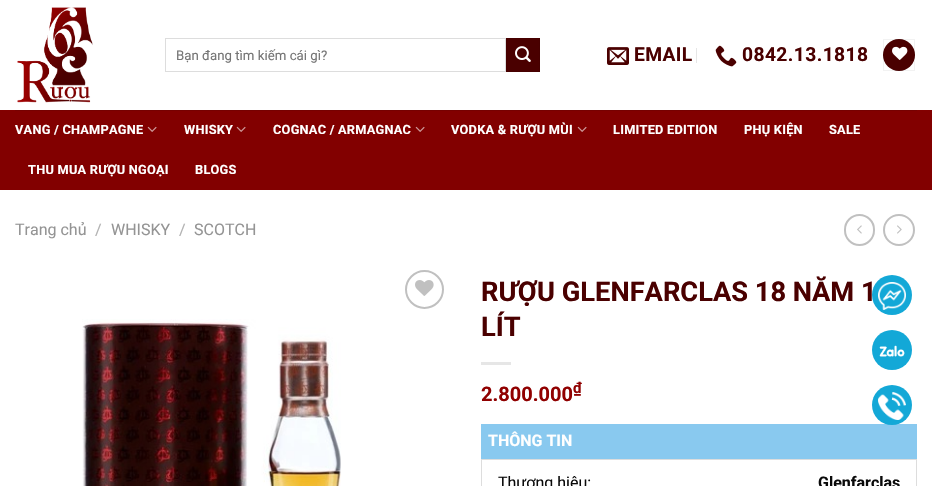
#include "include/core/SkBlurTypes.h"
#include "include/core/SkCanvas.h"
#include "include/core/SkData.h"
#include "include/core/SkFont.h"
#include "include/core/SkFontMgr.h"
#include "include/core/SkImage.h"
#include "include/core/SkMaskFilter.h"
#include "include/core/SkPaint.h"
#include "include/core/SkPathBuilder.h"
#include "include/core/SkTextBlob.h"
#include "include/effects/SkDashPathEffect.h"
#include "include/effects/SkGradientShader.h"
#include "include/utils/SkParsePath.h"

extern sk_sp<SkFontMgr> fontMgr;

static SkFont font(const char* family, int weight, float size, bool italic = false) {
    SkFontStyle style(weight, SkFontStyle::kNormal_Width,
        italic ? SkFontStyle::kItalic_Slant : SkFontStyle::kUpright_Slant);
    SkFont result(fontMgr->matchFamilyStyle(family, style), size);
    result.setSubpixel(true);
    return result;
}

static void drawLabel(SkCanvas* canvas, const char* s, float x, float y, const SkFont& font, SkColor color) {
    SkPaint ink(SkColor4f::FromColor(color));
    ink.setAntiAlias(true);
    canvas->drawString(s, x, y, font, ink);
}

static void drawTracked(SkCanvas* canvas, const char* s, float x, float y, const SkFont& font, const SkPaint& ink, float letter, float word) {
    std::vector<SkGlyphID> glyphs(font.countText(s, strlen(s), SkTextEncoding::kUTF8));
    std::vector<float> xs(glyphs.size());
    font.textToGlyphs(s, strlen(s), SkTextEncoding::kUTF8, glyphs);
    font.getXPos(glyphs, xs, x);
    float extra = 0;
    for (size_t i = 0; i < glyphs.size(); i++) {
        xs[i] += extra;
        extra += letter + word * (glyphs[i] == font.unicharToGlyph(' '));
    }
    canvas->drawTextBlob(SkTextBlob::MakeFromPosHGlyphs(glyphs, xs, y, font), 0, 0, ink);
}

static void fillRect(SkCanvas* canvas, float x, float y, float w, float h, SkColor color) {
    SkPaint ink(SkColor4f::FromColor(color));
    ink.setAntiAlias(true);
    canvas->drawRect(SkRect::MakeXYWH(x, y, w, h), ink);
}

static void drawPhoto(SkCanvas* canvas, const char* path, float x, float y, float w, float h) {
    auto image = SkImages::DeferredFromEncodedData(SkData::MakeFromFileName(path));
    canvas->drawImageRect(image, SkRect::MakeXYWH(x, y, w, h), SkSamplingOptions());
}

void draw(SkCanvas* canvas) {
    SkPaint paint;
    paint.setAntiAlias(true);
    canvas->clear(0xFFFFFFFF);
    drawPhoto(canvas, "assets/img1.png", 17, 7, 76, 96);
    paint.setStroke(true);
    paint.setStrokeWidth(1);
    paint.setColor(0xFFDDDDDD);
    canvas->drawRect(SkRect::MakeXYWH(165.5f, 38.5f, 340, 33), paint);
    SkFont font1 = font("Roboto", 400, 13.25f);
    drawLabel(canvas, "Bạn đang tìm kiếm cái gì?", 176, 60, font1, 0xFF757575);
    paint.setStroke(false);
    paint.setColor(0xFF4A0000);
    canvas->drawRect(SkRect::MakeXYWH(506.5f, 38.5f, 33, 33), paint);
    paint.setStroke(true);
    paint.setColor(0xFF460000);
    canvas->drawRect(SkRect::MakeXYWH(506.5f, 38.5f, 33, 33), paint);
    drawPhoto(canvas, "assets/img2.png", 515, 46, 16, 16);
    drawPhoto(canvas, "assets/img3.png", 607, 47, 22, 18);
    SkFont font2 = font("Roboto", 700, 19.25f);
    paint.setStroke(false);
    paint.setColor(0xFF4A0000);
    drawTracked(canvas, "EMAIL", 634, 61, font2, paint, 0.4f, 0);
    fillRect(canvas, 696, 48, 1, 15, 0xFFE6E6E6);
    drawPhoto(canvas, "assets/img4.png", 715, 45, 22, 22);
    drawTracked(canvas, "0842.13.1818", 742, 61, font2, paint, 0.4f, 0);
    canvas->drawCircle(899, 55, 16, paint);
    paint.setStroke(true);
    paint.setColor(0x0D000000);
    canvas->drawRect(SkRect::MakeXYWH(883.5f, 39.5f, 31, 31), paint);
    drawPhoto(canvas, "assets/img5.png", 892, 46, 16, 14);
    fillRect(canvas, 0, 110, 932, 80, 0xFF820000);
    fillRect(canvas, 15, 110, 902, 1, 0xFF760101);
    SkFont font3 = font("Roboto", 700, 12.75f);
    paint.setStroke(false);
    paint.setColor(0xFFFFFFFF);
    drawTracked(canvas, "VANG / CHAMPAGNE", 15, 134, font3, paint, 0.25f, 0);
    drawPhoto(canvas, "assets/img6.png", 147, 126, 10, 6);
    drawTracked(canvas, "WHISKY", 184, 134, font3, paint, 0.25f, 0);
    drawPhoto(canvas, "assets/img6.png", 236, 126, 10, 6);
    drawTracked(canvas, "COGNAC / ARMAGNAC", 273, 134, font3, paint, 0.25f, 0);
    drawPhoto(canvas, "assets/img6.png", 415, 126, 10, 6);
    drawTracked(canvas, "VODKA & RƯỢU MÙI", 451, 134, font3, paint, 0.25f, 0);
    drawPhoto(canvas, "assets/img6.png", 577, 126, 10, 6);
    drawTracked(canvas, "LIMITED EDITION", 613, 134, font3, paint, 0.25f, 0);
    drawTracked(canvas, "PHỤ KIỆN", 744, 134, font3, paint, 0.25f, 0);
    drawTracked(canvas, "SALE", 829, 134, font3, paint, 0.25f, 0);
    drawTracked(canvas, "THU MUA RƯỢU NGOẠI", 28, 174, font3, paint, 0.25f, 0);
    drawTracked(canvas, "BLOGS", 195, 174, font3, paint, 0.25f, 0);
    SkFont font4 = font("Roboto", 400, 16);
    drawLabel(canvas, "Trang chủ", 15, 235, font4, 0xFF949494);
    drawLabel(canvas, "/", 95, 235, font4, 0xFFB2B2B2);
    drawLabel(canvas, "WHISKY", 111, 235, font4, 0xFF949494);
    drawLabel(canvas, "/", 179, 235, font4, 0xFFB2B2B2);
    drawLabel(canvas, "SCOTCH", 194, 235, font4, 0xFF949494);
    paint.setStroke(true);
    paint.setStrokeWidth(2);
    paint.setColor(0xFFC0C0C0);
    canvas->drawRoundRect(SkRect::MakeXYWH(845, 215, 29, 30), 14.5f, 14.5f, paint);
    drawPhoto(canvas, "assets/img7.png", 857, 225, 5, 9);
    canvas->drawCircle(899, 230, 15, paint);
    drawPhoto(canvas, "assets/img8.png", 897, 225, 5, 9);
    canvas->drawCircle(424.5f, 289.5f, 18.5f, paint);
    drawPhoto(canvas, "assets/img9.png", 415, 280, 19, 16);
    drawPhoto(canvas, "assets/img10.png", 82, 319, 259, 167);
    SkFont font5 = font("Roboto", 700, 27.25f);
    drawLabel(canvas, "RƯỢU GLENFARCLAS 18 NĂM 1", 481, 301, font5, 0xFF4A0000);
    drawLabel(canvas, "LÍT", 481, 336, font5, 0xFF4A0000);
    fillRect(canvas, 481, 362, 30, 3, 0xFFE6E6E6);
    SkFont font6 = font("Roboto", 700, 20);
    drawLabel(canvas, "2.800.000", 481, 401, font6, 0xFF900000);
    SkFont font7 = font("Roboto", 700, 15);
    drawLabel(canvas, "₫", 573, 393, font7, 0xFF900000);
    fillRect(canvas, 481, 424, 436, 35, 0xFF89C9EF);
    SkFont font8 = font("Roboto", 700, 16);
    drawLabel(canvas, "THÔNG TIN", 488, 446, font8, 0xFFFFFFFF);
    paint.setStrokeWidth(1);
    paint.setColor(0xFFDDDDDD);
    canvas->drawRect(SkRect::MakeXYWH(481.5f, 459.5f, 435, 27), paint);
    drawLabel(canvas, "Thương hiệu:", 498, 488, font4, 0xFF0A0A0A);
    drawLabel(canvas, "Glenfarclas", 818, 488, font8, 0xFF0A0A0A);
    paint.setStroke(false);
    paint.setColor(0xFF13A8D7);
    canvas->drawCircle(892, 295, 20, paint);
    drawPhoto(canvas, "assets/img11.png", 878, 282, 28, 28);
    canvas->drawCircle(892, 350, 20, paint);
    drawPhoto(canvas, "assets/img12.png", 879, 345, 26, 12);
    canvas->drawCircle(892, 405, 20, paint);
    drawPhoto(canvas, "assets/img13.png", 878, 392, 28, 28);
}
